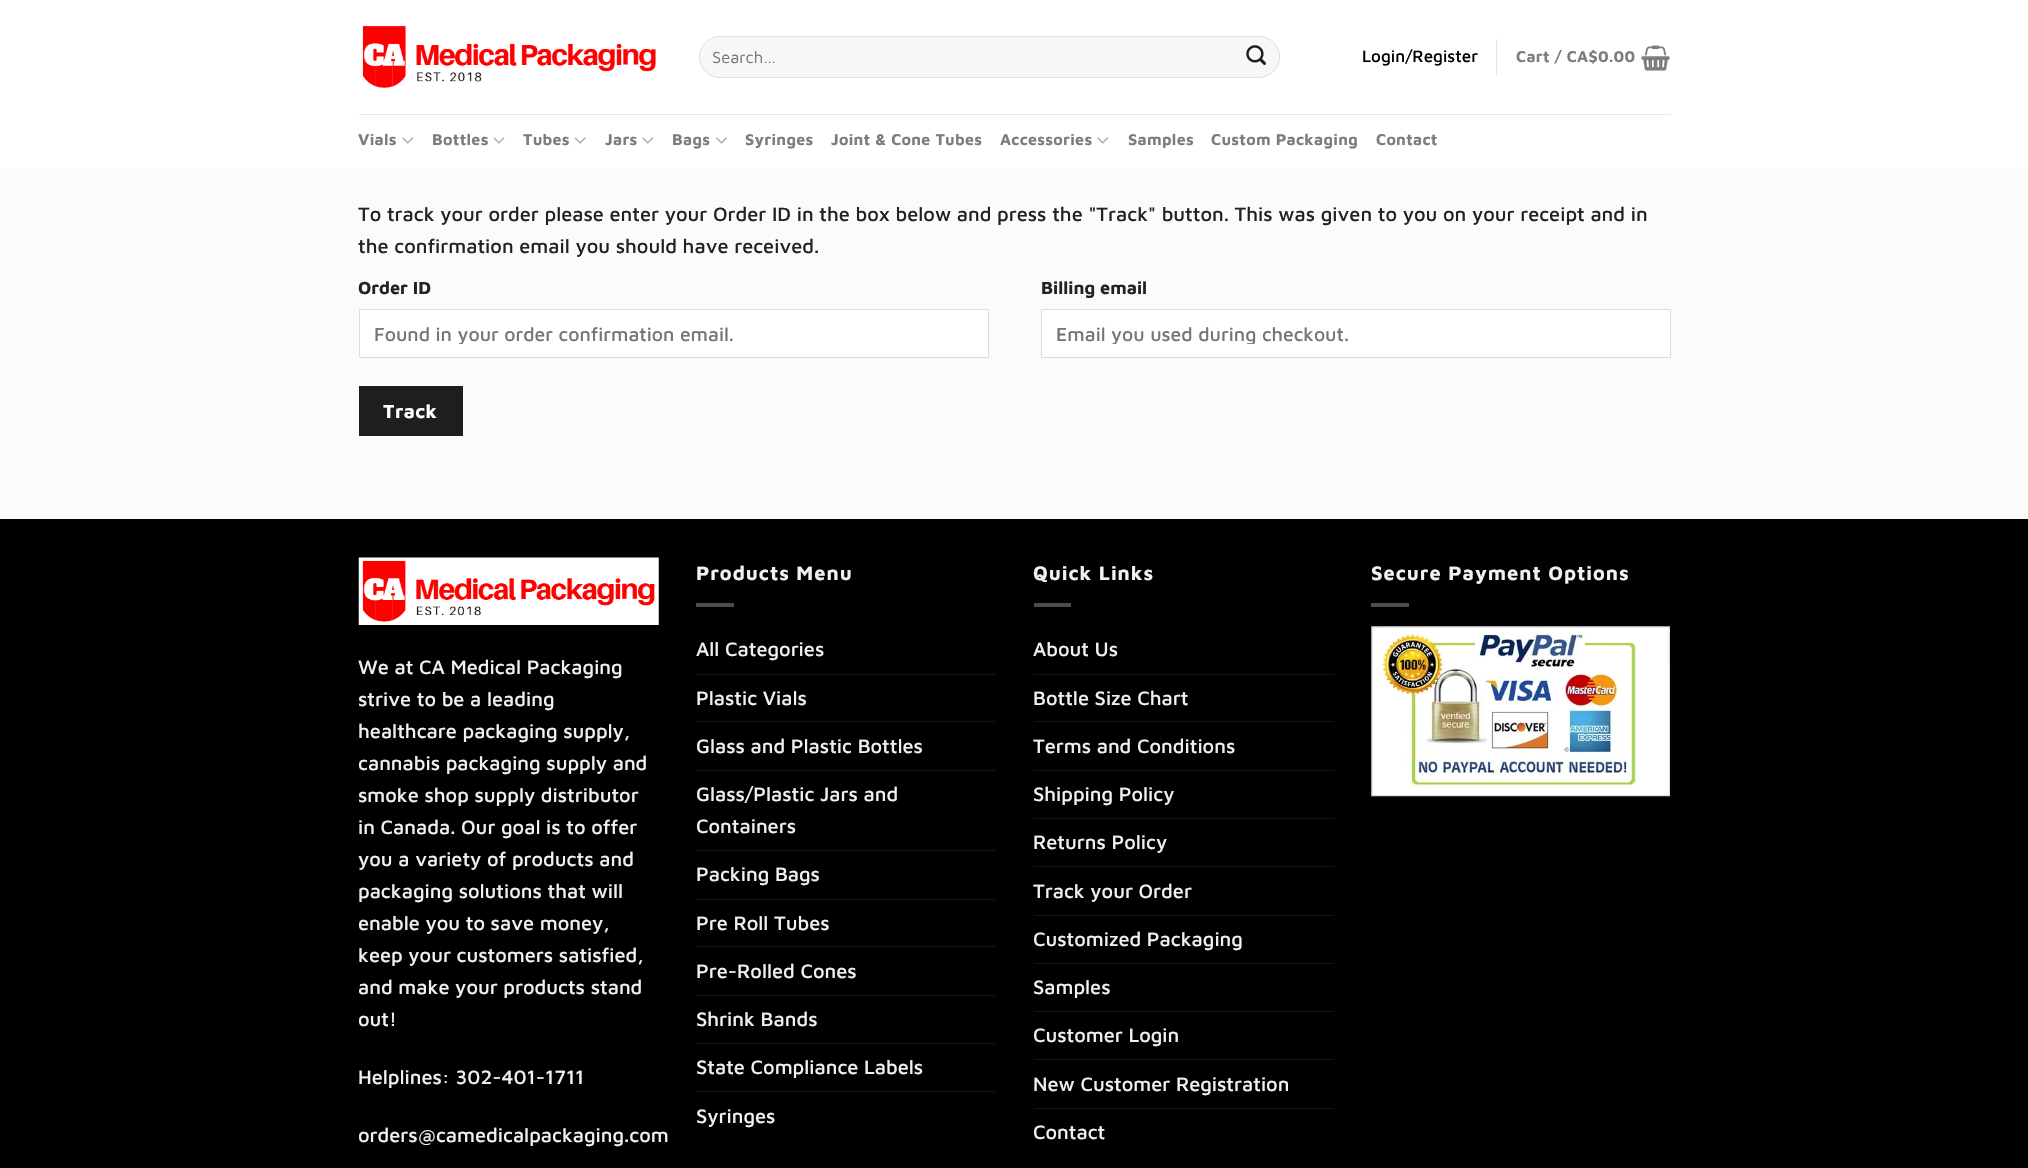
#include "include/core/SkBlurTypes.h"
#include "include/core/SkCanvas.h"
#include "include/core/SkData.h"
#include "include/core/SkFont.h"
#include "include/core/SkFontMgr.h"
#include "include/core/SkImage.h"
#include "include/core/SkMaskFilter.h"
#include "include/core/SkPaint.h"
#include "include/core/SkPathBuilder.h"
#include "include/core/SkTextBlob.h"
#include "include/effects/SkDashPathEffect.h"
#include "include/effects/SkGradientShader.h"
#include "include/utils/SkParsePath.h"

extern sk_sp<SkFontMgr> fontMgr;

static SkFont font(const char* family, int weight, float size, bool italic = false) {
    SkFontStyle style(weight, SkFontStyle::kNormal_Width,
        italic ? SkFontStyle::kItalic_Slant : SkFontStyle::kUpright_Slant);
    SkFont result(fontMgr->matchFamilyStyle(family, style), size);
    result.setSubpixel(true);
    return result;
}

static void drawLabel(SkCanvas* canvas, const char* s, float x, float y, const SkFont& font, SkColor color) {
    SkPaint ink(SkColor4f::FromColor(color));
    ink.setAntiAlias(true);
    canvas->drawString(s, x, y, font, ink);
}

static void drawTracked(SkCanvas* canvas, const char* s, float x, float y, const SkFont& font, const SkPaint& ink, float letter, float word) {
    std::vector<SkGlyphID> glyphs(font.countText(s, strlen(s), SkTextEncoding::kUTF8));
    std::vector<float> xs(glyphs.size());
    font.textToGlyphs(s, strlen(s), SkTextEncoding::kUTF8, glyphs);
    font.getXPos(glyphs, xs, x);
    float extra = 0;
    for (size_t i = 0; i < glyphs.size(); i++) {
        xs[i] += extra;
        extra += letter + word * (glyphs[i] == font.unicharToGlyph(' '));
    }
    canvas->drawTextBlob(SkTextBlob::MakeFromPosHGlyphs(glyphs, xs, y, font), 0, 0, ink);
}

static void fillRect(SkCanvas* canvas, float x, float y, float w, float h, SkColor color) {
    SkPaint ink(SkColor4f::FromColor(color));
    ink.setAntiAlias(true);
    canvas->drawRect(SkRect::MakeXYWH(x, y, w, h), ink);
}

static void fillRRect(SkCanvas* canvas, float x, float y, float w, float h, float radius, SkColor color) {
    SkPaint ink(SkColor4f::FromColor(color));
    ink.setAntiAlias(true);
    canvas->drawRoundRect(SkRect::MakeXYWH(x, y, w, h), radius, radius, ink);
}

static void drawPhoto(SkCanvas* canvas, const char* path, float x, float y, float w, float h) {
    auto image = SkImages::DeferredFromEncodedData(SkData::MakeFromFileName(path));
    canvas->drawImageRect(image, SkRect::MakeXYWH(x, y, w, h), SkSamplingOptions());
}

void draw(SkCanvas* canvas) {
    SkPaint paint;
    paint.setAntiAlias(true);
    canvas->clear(0xFFFBFBFB);
    fillRect(canvas, 0, 0, 2028, 168, 0xFFFFFFFF);
    drawPhoto(canvas, "assets/img1.png", 362, 25, 294, 63);
    fillRRect(canvas, 699, 36, 581, 42, 21, 0xFFF7F7F7);
    paint.setStroke(true);
    paint.setStrokeWidth(1);
    paint.setColor(0x17000000);
    canvas->drawRoundRect(SkRect::MakeXYWH(699.5f, 36.5f, 580, 41), 20.5f, 20.5f, paint);
    SkFont font1 = font("Maven Pro", 400, 16.5f);
    drawLabel(canvas, "Search…", 712, 63, font1, 0xFF757575);
    drawPhoto(canvas, "assets/img2.png", 1246, 45, 20, 20);
    SkFont font2 = font("Maven Pro", 500, 17);
    drawLabel(canvas, "Login/Register", 1362, 62, font2, 0xFF000000);
    fillRect(canvas, 1496, 39, 1, 37, 0xFFE6E6E6);
    SkFont font3 = font("Maven Pro", 700, 16);
    paint.setStroke(false);
    paint.setColor(0xFF7D7D7D);
    drawTracked(canvas, "Cart / CA$0.00", 1516, 62, font3, paint, 0.3f, 0);
    drawPhoto(canvas, "assets/img3.png", 1641, 45, 29, 26);
    fillRect(canvas, 359, 114, 1312, 1, 0xFFE9E9E9);
    drawTracked(canvas, "Vials", 358, 145, font3, paint, 0.3f, 0);
    drawPhoto(canvas, "assets/img4.png", 402, 137, 12, 7);
    drawTracked(canvas, "Bottles", 432, 145, font3, paint, 0.3f, 0);
    drawPhoto(canvas, "assets/img5.png", 493, 137, 12, 7);
    drawTracked(canvas, "Tubes", 523, 145, font3, paint, 0.3f, 0);
    drawPhoto(canvas, "assets/img6.png", 574, 137, 12, 7);
    drawTracked(canvas, "Jars", 605, 145, font3, paint, 0.3f, 0);
    drawPhoto(canvas, "assets/img4.png", 642, 137, 12, 7);
    drawTracked(canvas, "Bags", 672, 145, font3, paint, 0.3f, 0);
    drawPhoto(canvas, "assets/img7.png", 716, 137, 11, 7);
    drawTracked(canvas, "Syringes", 745, 145, font3, paint, 0.3f, 0);
    drawTracked(canvas, "Joint & Cone Tubes", 831, 145, font3, paint, 0.3f, 0);
    drawTracked(canvas, "Accessories", 1000, 145, font3, paint, 0.3f, 0);
    drawPhoto(canvas, "assets/img4.png", 1097, 137, 12, 7);
    drawTracked(canvas, "Samples", 1128, 145, font3, paint, 0.3f, 0);
    drawTracked(canvas, "Custom Packaging", 1211, 145, font3, paint, 0.3f, 0);
    drawTracked(canvas, "Contact", 1376, 145, font3, paint, 0.3f, 0);
    SkFont font4 = font("Maven Pro", 500, 20);
    drawLabel(canvas, "To track your order please enter your Order ID in the box below and press the \"Track\" button. This was given to you on your receipt and in", 358, 221, font4, 0xFF222222);
    drawLabel(canvas, "the confirmation email you should have received.", 358, 253, font4, 0xFF222222);
    SkFont font5 = font("Maven Pro", 700, 18);
    drawLabel(canvas, "Order ID", 358, 294, font5, 0xFF222222);
    paint.setColor(0xFFFFFFFF);
    canvas->drawRect(SkRect::MakeXYWH(359.5f, 309.5f, 629, 48), paint);
    paint.setStroke(true);
    paint.setColor(0xFFDDDDDD);
    canvas->drawRect(SkRect::MakeXYWH(359.5f, 309.5f, 629, 48), paint);
    canvas->save();
    canvas->clipRect(SkRect::MakeXYWH(374, 321, 599, 23));
    SkFont font6 = font("Maven Pro", 500, 19.4f);
    drawLabel(canvas, "Found in your order confirmation email.", 374, 341, font6, 0xFF757575);
    canvas->restore();
    drawLabel(canvas, "Billing email", 1041, 294, font5, 0xFF222222);
    paint.setStroke(false);
    paint.setColor(0xFFFFFFFF);
    canvas->drawRect(SkRect::MakeXYWH(1041.5f, 309.5f, 629, 48), paint);
    paint.setStroke(true);
    paint.setColor(0xFFDDDDDD);
    canvas->drawRect(SkRect::MakeXYWH(1041.5f, 309.5f, 629, 48), paint);
    canvas->save();
    canvas->clipRect(SkRect::MakeXYWH(1056, 321, 599, 23));
    drawLabel(canvas, "Email you used during checkout.", 1056, 341, font6, 0xFF757575);
    canvas->restore();
    fillRect(canvas, 359, 386, 104, 50, 0xFF1E1E1E);
    SkFont font7 = font("Maven Pro", 700, 19.4f);
    paint.setStroke(false);
    paint.setColor(0xFFFFFFFF);
    drawTracked(canvas, "Track", 383, 418, font7, paint, 0.5f, 0);
    fillRect(canvas, 0, 519, 2028, 649, 0xFF000000);
    SkFont font8 = font("Maven Pro", 700, 20);
    paint.setColor(0xFFF1F1F1);
    drawTracked(canvas, "Products Menu", 696, 580, font8, paint, 1, 0);
    fillRect(canvas, 696, 603, 38, 4, 0xFF4D4D4D);
    drawLabel(canvas, "All Categories", 696, 656, font4, 0xFFF1F1F1);
    fillRect(canvas, 696, 674, 300, 1, 0xFF141414);
    drawLabel(canvas, "Plastic Vials", 696, 705, font4, 0xFFF1F1F1);
    fillRect(canvas, 696, 721, 300, 1, 0xFF141414);
    drawLabel(canvas, "Glass and Plastic Bottles", 696, 753, font4, 0xFFF1F1F1);
    fillRect(canvas, 696, 770, 300, 1, 0xFF141414);
    drawLabel(canvas, "Glass/Plastic Jars and", 696, 801, font4, 0xFFF1F1F1);
    drawLabel(canvas, "Containers", 696, 833, font4, 0xFFF1F1F1);
    fillRect(canvas, 696, 850, 300, 1, 0xFF141414);
    drawLabel(canvas, "Packing Bags", 696, 881, font4, 0xFFF1F1F1);
    fillRect(canvas, 696, 899, 300, 1, 0xFF141414);
    drawLabel(canvas, "Pre Roll Tubes", 696, 930, font4, 0xFFF1F1F1);
    fillRect(canvas, 696, 946, 300, 1, 0xFF141414);
    drawLabel(canvas, "Pre-Rolled Cones", 696, 978, font4, 0xFFF1F1F1);
    fillRect(canvas, 696, 995, 300, 1, 0xFF141414);
    drawLabel(canvas, "Shrink Bands", 696, 1026, font4, 0xFFF1F1F1);
    fillRect(canvas, 696, 1043, 300, 1, 0xFF141414);
    drawLabel(canvas, "State Compliance Labels", 696, 1074, font4, 0xFFF1F1F1);
    fillRect(canvas, 696, 1091, 300, 1, 0xFF141414);
    drawLabel(canvas, "Syringes", 696, 1123, font4, 0xFFF1F1F1);
    drawTracked(canvas, "Quick Links", 1033, 580, font8, paint, 1, 0);
    fillRect(canvas, 1034, 603, 37, 4, 0xFF4D4D4D);
    drawLabel(canvas, "About Us", 1033, 656, font4, 0xFFF1F1F1);
    fillRect(canvas, 1034, 674, 300, 1, 0xFF141414);
    drawLabel(canvas, "Bottle Size Chart", 1033, 705, font4, 0xFFF1F1F1);
    fillRect(canvas, 1034, 721, 300, 1, 0xFF141414);
    drawLabel(canvas, "Terms and Conditions", 1033, 753, font4, 0xFFF1F1F1);
    fillRect(canvas, 1034, 770, 300, 1, 0xFF141414);
    drawLabel(canvas, "Shipping Policy", 1033, 801, font4, 0xFFF1F1F1);
    fillRect(canvas, 1034, 818, 300, 1, 0xFF141414);
    drawLabel(canvas, "Returns Policy", 1033, 849, font4, 0xFFF1F1F1);
    fillRect(canvas, 1034, 866, 300, 1, 0xFF141414);
    drawLabel(canvas, "Track your Order", 1033, 898, font4, 0xFFF1F1F1);
    fillRect(canvas, 1034, 915, 300, 1, 0xFF141414);
    drawLabel(canvas, "Customized Packaging", 1033, 946, font4, 0xFFF1F1F1);
    fillRect(canvas, 1034, 963, 300, 1, 0xFF141414);
    drawLabel(canvas, "Samples", 1033, 994, font4, 0xFFF1F1F1);
    fillRect(canvas, 1034, 1011, 300, 1, 0xFF141414);
    drawLabel(canvas, "Customer Login", 1033, 1042, font4, 0xFFF1F1F1);
    fillRect(canvas, 1034, 1059, 300, 1, 0xFF141414);
    drawLabel(canvas, "New Customer Registration", 1033, 1091, font4, 0xFFF1F1F1);
    fillRect(canvas, 1034, 1108, 300, 1, 0xFF141414);
    drawLabel(canvas, "Contact", 1033, 1139, font4, 0xFFF1F1F1);
    drawTracked(canvas, "Secure Payment Options", 1371, 580, font8, paint, 1, 0);
    fillRect(canvas, 1371, 603, 38, 4, 0xFF4D4D4D);
    drawPhoto(canvas, "assets/img8.png", 1371, 626, 299, 171);
    drawPhoto(canvas, "assets/img9.png", 358, 557, 301, 68);
    drawLabel(canvas, "We at CA Medical Packaging", 358, 674, font4, 0xFFF1F1F1);
    drawLabel(canvas, "strive to be a leading", 358, 706, font4, 0xFFF1F1F1);
    drawLabel(canvas, "healthcare packaging supply,", 358, 738, font4, 0xFFF1F1F1);
    drawLabel(canvas, "cannabis packaging supply and", 358, 770, font4, 0xFFF1F1F1);
    drawLabel(canvas, "smoke shop supply distributor", 358, 802, font4, 0xFFF1F1F1);
    drawLabel(canvas, "in Canada. Our goal is to offer", 358, 834, font4, 0xFFF1F1F1);
    drawLabel(canvas, "you a variety of products and", 358, 866, font4, 0xFFF1F1F1);
    drawLabel(canvas, "packaging solutions that will", 358, 898, font4, 0xFFF1F1F1);
    drawLabel(canvas, "enable you to save money,", 358, 930, font4, 0xFFF1F1F1);
    drawLabel(canvas, "keep your customers satisfied,", 358, 962, font4, 0xFFF1F1F1);
    drawLabel(canvas, "and make your products stand", 358, 994, font4, 0xFFF1F1F1);
    drawLabel(canvas, "out!", 358, 1026, font4, 0xFFF1F1F1);
    drawLabel(canvas, "Helplines: 302-401-1711", 358, 1084, font4, 0xFFF1F1F1);
    drawLabel(canvas, "orders@camedicalpackaging.com", 358, 1142, font4, 0xFFF1F1F1);
}
